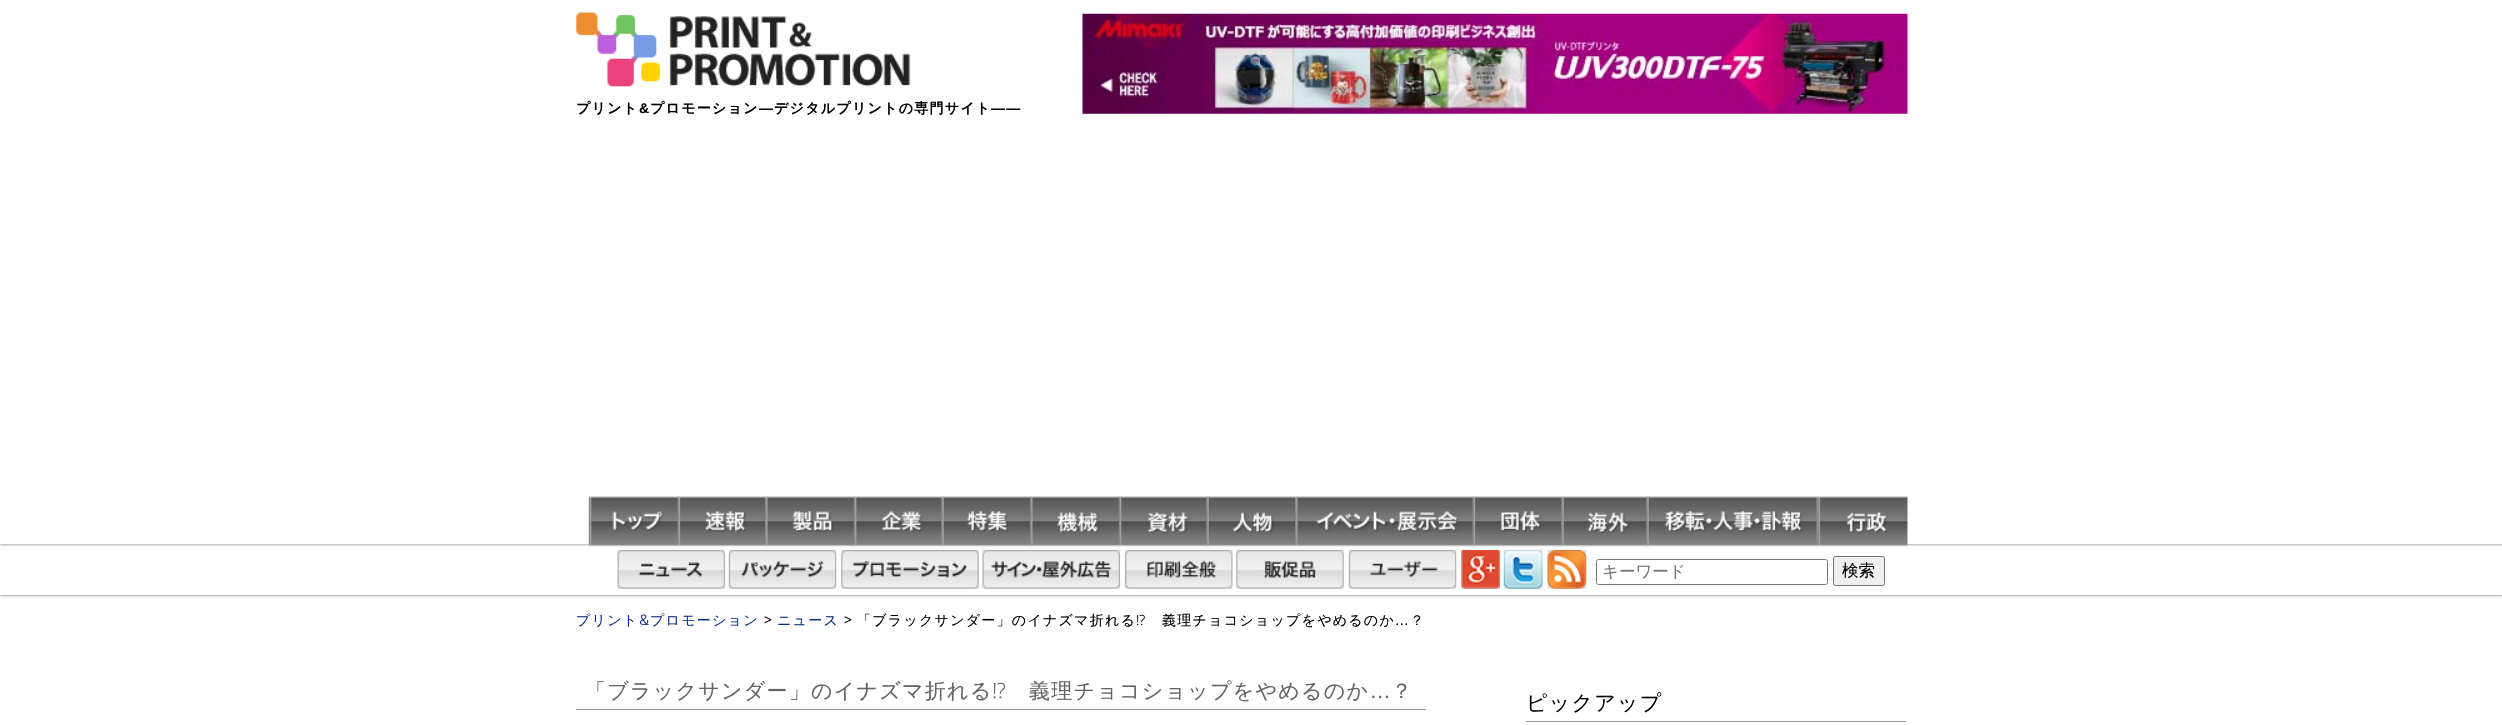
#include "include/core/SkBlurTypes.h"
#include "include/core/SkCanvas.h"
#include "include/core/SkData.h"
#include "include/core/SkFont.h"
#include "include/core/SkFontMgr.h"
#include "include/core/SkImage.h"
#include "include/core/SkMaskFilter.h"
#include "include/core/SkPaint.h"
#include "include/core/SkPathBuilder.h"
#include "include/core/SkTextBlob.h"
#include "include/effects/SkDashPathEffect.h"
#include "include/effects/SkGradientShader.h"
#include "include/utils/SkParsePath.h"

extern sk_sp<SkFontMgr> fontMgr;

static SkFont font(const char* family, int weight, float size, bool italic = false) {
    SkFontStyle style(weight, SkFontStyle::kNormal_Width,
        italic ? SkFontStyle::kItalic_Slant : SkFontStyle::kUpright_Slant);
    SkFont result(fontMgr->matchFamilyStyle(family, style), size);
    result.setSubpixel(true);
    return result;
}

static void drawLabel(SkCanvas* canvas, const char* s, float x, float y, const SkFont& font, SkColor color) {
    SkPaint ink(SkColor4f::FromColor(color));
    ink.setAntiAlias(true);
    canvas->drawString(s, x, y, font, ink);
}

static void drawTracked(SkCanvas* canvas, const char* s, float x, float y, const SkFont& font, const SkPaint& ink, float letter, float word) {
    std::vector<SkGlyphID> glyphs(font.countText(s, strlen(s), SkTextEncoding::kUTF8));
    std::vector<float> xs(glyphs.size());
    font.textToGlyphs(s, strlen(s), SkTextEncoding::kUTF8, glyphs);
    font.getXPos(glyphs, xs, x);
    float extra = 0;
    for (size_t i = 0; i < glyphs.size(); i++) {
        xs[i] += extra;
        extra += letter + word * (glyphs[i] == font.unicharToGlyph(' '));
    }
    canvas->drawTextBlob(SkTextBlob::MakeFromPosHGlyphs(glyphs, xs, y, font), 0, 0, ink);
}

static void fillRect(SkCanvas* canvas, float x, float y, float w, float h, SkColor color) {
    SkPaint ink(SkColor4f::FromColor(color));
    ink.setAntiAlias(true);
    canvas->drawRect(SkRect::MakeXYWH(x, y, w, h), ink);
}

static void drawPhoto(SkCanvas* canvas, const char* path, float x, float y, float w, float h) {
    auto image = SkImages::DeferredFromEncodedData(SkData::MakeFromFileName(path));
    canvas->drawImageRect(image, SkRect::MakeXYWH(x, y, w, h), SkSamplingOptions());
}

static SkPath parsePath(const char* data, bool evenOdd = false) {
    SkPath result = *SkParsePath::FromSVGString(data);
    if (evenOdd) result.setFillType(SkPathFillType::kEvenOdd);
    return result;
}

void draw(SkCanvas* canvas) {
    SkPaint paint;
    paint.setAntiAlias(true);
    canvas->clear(0xFFFFFFFF);
    drawPhoto(canvas, "assets/img1.png", 576, 12, 335, 75);
    SkFont font1 = font("WenQuanYi Zen Hei", 700, 14);
    paint.setColor(0xFF000000);
    drawTracked(canvas, "プリント", 576, 113, font1, paint, 1.25f, 0);
    SkFont font2 = font("Liberation Sans", 700, 14);
    drawTracked(canvas, "&", 639, 113, font2, paint, 1.25f, 0);
    drawTracked(canvas, "プロモーション", 650, 113, font1, paint, 1.25f, 0);
    drawTracked(canvas, "―", 759, 113, font2, paint, 1.25f, 0);
    drawTracked(canvas, "デジタルプリントの専門サイト", 774, 113, font1, paint, 1.25f, 0);
    drawTracked(canvas, "――", 991, 113, font2, paint, 1.25f, 0);
    drawPhoto(canvas, "assets/img2.png", 1082, 13, 826, 101);
    canvas->save();
    canvas->clipPath(parsePath("M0 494H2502V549H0ZM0 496H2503V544H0Z", true), true);
    paint.setColor(0xFFAAAAAA);
    paint.setMaskFilter(SkMaskFilter::MakeBlur(kNormal_SkBlurStyle, 1));
    canvas->drawRect(SkRect::MakeXYWH(0, 498, 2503, 47), paint);
    paint.setMaskFilter(nullptr);
    canvas->restore();
    drawPhoto(canvas, "assets/img3.png", 588, 496, 91, 51);
    drawPhoto(canvas, "assets/img4.png", 677, 496, 91, 51);
    drawPhoto(canvas, "assets/img5.png", 765, 496, 90, 51);
    drawPhoto(canvas, "assets/img6.png", 853, 496, 91, 51);
    drawPhoto(canvas, "assets/img7.png", 941, 496, 91, 51);
    drawPhoto(canvas, "assets/img8.png", 1030, 496, 90, 51);
    drawPhoto(canvas, "assets/img9.png", 1118, 496, 91, 51);
    drawPhoto(canvas, "assets/img10.png", 1206, 496, 91, 51);
    drawPhoto(canvas, "assets/img11.png", 1295, 496, 180, 51);
    drawPhoto(canvas, "assets/img12.png", 1472, 496, 91, 51);
    drawPhoto(canvas, "assets/img13.png", 1561, 496, 88, 51);
    drawPhoto(canvas, "assets/img14.png", 1646, 496, 173, 51);
    drawPhoto(canvas, "assets/img15.png", 1817, 496, 91, 51);
    canvas->save();
    canvas->clipPath(parsePath("M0 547H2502V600H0ZM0 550H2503V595H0Z", true), true);
    paint.setMaskFilter(SkMaskFilter::MakeBlur(kNormal_SkBlurStyle, 1));
    canvas->drawRect(SkRect::MakeXYWH(0, 551, 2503, 45), paint);
    paint.setMaskFilter(nullptr);
    canvas->restore();
    drawPhoto(canvas, "assets/img16.png", 617, 550, 108, 39);
    drawPhoto(canvas, "assets/img17.png", 728, 550, 109, 39);
    drawPhoto(canvas, "assets/img18.png", 841, 550, 138, 39);
    drawPhoto(canvas, "assets/img19.png", 982, 550, 138, 39);
    drawPhoto(canvas, "assets/img20.png", 1125, 550, 108, 39);
    drawPhoto(canvas, "assets/img21.png", 1236, 550, 108, 39);
    drawPhoto(canvas, "assets/img22.png", 1348, 550, 109, 39);
    drawPhoto(canvas, "assets/img23.png", 1461, 550, 39, 39);
    drawPhoto(canvas, "assets/img24.png", 1503, 550, 40, 39);
    drawPhoto(canvas, "assets/img25.png", 1547, 550, 40, 39);
    paint.setStroke(true);
    paint.setStrokeWidth(1);
    paint.setColor(0xFF767676);
    canvas->drawRoundRect(SkRect::MakeXYWH(1596.5f, 559.5f, 231, 25), 2, 2, paint);
    SkFont font3 = font("WenQuanYi Zen Hei", 500, 16.5f);
    drawLabel(canvas, "キーワード", 1602, 577, font3, 0xFF757575);
    paint.setStroke(false);
    paint.setColor(0xFFEFEFEF);
    canvas->drawRoundRect(SkRect::MakeXYWH(1833.5f, 556.5f, 51, 29), 2, 2, paint);
    paint.setStroke(true);
    paint.setColor(0xFF767676);
    canvas->drawRoundRect(SkRect::MakeXYWH(1833.5f, 556.5f, 51, 29), 2, 2, paint);
    drawLabel(canvas, "検索", 1842, 576, font3, 0xFF000000);
    SkFont font4 = font("WenQuanYi Zen Hei", 500, 14);
    paint.setStroke(false);
    paint.setColor(0xFF0F3184);
    drawTracked(canvas, "プリント", 576, 625, font4, paint, 1.25f, 0);
    SkFont font5 = font("Merriweather Sans", 300, 14);
    drawTracked(canvas, "&", 639, 625, font5, paint, 1.25f, 0);
    drawTracked(canvas, "プロモーション", 650, 625, font4, paint, 1.25f, 0);
    paint.setColor(0xFF000000);
    drawTracked(canvas, ">", 763, 625, font5, paint, 1.25f, 0);
    paint.setColor(0xFF0F3184);
    drawTracked(canvas, "ニュース", 777, 625, font4, paint, 1.25f, 0);
    paint.setColor(0xFF000000);
    drawTracked(canvas, ">", 843, 625, font5, paint, 1.25f, 0);
    drawTracked(canvas, "「ブラックサンダー」のイナズマ折れる", 857, 625, font4, paint, 1.25f, 0);
    SkFont font6 = font("Noto Sans", 300, 14);
    drawTracked(canvas, "⁉", 1136, 625, font6, paint, 1.25f, 0);
    drawTracked(canvas, "義理チョコショップをやめるのか", 1162, 625, font4, paint, 1.25f, 0);
    drawTracked(canvas, "？", 1410, 625, font4, paint, 1.25f, 0);
    drawTracked(canvas, "…", 1395, 625, font5, paint, 1.25f, 0);
    fillRect(canvas, 576, 709, 850, 1, 0xFF999999);
    SkFont font7 = font("WenQuanYi Zen Hei", 500, 21);
    paint.setColor(0xFF646464);
    drawTracked(canvas, "「ブラックサンダー」のイナズマ折れる", 585, 698, font7, paint, 1.25f, 0);
    SkFont font8 = font("Noto Sans", 300, 21);
    drawTracked(canvas, "⁉", 992, 698, font8, paint, 1.25f, 0);
    drawTracked(canvas, "義理チョコショップをやめるのか", 1029, 698, font7, paint, 1.25f, 0);
    SkFont font9 = font("Merriweather Sans", 300, 21);
    drawTracked(canvas, "…", 1370, 698, font9, paint, 1.25f, 0);
    drawTracked(canvas, "？", 1391, 698, font7, paint, 1.25f, 0);
    fillRect(canvas, 1526, 721, 380, 1, 0xFF999999);
    paint.setColor(0xFF000000);
    drawTracked(canvas, "ピックアップ", 1526, 710, font7, paint, 1.25f, 0);
}
